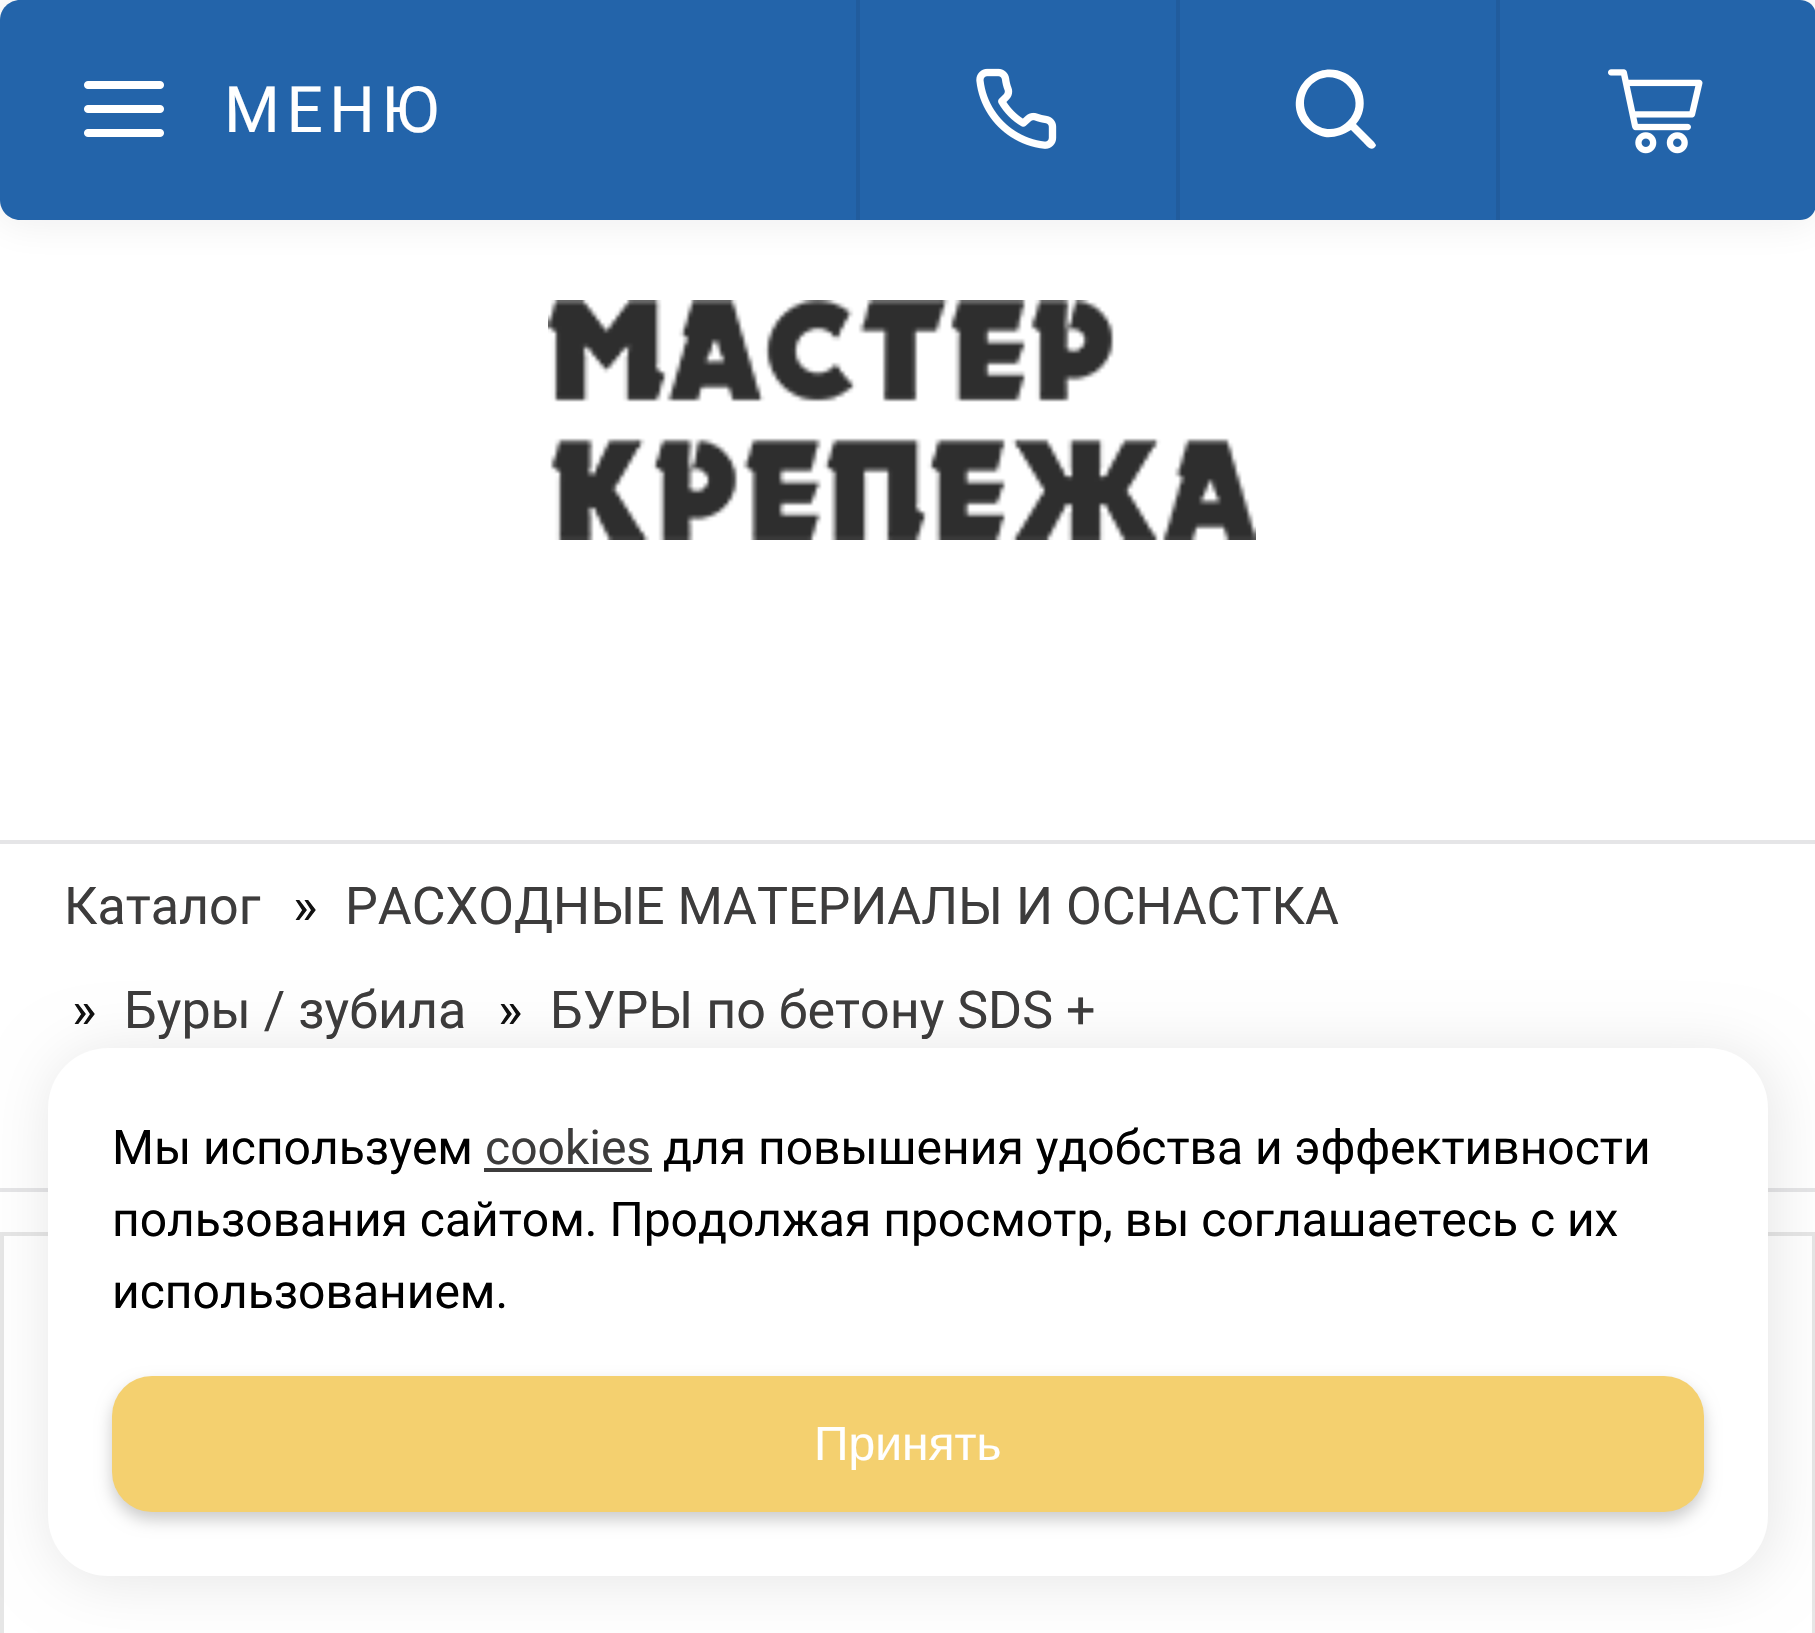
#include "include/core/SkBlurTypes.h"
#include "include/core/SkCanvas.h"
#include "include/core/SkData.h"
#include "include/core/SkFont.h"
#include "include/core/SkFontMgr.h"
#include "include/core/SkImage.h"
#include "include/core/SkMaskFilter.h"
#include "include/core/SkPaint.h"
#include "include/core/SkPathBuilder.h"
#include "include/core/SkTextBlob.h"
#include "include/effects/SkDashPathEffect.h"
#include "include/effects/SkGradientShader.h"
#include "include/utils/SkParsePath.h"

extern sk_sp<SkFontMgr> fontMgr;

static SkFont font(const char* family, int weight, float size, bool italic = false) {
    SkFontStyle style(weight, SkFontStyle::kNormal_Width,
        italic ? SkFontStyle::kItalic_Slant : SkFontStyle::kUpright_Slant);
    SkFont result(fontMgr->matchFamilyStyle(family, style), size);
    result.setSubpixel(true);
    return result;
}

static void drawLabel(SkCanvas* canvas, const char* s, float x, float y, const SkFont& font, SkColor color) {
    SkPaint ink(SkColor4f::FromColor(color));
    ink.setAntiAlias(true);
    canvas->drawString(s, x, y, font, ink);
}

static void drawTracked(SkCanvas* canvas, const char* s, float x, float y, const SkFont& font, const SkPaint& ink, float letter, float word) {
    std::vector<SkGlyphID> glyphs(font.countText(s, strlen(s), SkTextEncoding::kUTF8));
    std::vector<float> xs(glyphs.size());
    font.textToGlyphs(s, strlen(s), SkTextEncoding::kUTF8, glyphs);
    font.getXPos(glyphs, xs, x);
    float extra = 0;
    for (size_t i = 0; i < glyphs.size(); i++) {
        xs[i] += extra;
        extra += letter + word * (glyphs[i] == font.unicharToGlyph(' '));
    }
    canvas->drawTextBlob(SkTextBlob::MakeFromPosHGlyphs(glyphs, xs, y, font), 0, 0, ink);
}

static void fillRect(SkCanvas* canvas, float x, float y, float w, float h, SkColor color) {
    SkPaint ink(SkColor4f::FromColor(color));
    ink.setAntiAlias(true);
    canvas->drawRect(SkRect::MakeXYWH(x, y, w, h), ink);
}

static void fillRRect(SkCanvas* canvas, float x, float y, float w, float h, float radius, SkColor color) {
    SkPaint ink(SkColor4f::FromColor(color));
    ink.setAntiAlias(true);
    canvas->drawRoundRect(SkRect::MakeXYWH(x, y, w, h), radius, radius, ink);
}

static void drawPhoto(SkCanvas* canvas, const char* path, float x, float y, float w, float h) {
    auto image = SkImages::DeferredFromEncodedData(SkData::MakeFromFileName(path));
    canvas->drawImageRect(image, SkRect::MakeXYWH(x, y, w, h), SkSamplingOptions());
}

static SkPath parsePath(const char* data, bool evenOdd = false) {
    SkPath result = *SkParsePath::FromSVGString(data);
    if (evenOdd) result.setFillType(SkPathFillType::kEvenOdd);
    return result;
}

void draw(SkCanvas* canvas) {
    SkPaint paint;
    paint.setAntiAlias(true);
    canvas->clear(0xFFFFFFFF);
    paint.setColor(0x12100F1C);
    paint.setMaskFilter(SkMaskFilter::MakeBlur(kNormal_SkBlurStyle, 20));
    canvas->drawRoundRect(SkRect::MakeXYWH(-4, -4, 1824, 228), 24, 24, paint);
    paint.setMaskFilter(nullptr);
    paint.setColor(0xFF2364AA);
    canvas->drawPath(parsePath("M20 0H1800C1809 0 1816 7 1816 16V204C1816 213 1809 220 1800 220H20C9 220 0 211 0 200V20C0 9 9 0 20 0Z"), paint);
    drawPhoto(canvas, "assets/img1.png", 84, 81, 80, 56);
    SkFont font1 = font("Roboto", 400, 64);
    paint.setColor(0xFFFFFFFF);
    drawTracked(canvas, "МЕНЮ", 224, 132, font1, paint, 6.5f, 0);
    fillRect(canvas, 856, 0, 4, 220, 0xFF215C9D);
    drawPhoto(canvas, "assets/img2.png", 976, 68, 81, 81);
    fillRect(canvas, 1176, 0, 4, 220, 0xFF215C9D);
    canvas->drawPath(parsePath("M1374 142L1356 124C1363 116 1365 106 1363 96C1361 86 1354 77 1345 73C1311 57 1280 99 1305 126C1310 131 1317 135 1325 137C1334 138 1343 135 1351 130L1363 142C1365 144 1370 151 1374 148C1375 147 1376 146 1376 145ZM1304 103C1304 96 1307 89 1312 84C1337 62 1371 98 1348 121C1345 124 1341 127 1337 128C1321 133 1304 120 1304 103Z"), paint);
    fillRect(canvas, 1496, 0, 4, 220, 0xFF215C9D);
    drawPhoto(canvas, "assets/img3.png", 1608, 69, 95, 85);
    drawPhoto(canvas, "assets/img4.png", 548, 300, 708, 240);
    fillRect(canvas, 0, 840, 1815, 4, 0xFFE5E5E7);
    fillRect(canvas, 0, 1188, 1815, 4, 0xFFE5E5E7);
    SkFont font2 = font("Roboto", 400, 52);
    drawLabel(canvas, "Каталог", 64, 924, font2, 0xFF3D3C3C);
    drawLabel(canvas, "»", 293, 924, font2, 0xFF111111);
    drawLabel(canvas, "РАСХОДНЫЕ МАТЕРИАЛЫ И ОСНАСТКА", 345, 924, font2, 0xFF3D3C3C);
    drawLabel(canvas, "»", 72, 1028, font2, 0xFF111111);
    drawLabel(canvas, "Буры / зубила", 124, 1028, font2, 0xFF3D3C3C);
    drawLabel(canvas, "»", 498, 1028, font2, 0xFF111111);
    drawLabel(canvas, "БУРЫ по бетону SDS +", 550, 1028, font2, 0xFF3D3C3C);
    paint.setStroke(true);
    paint.setStrokeWidth(4);
    paint.setColor(0xFFE6E6E6);
    canvas->drawRect(SkRect::MakeXYWH(2, 1234, 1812, 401), paint);
    paint.setStroke(false);
    paint.setColor(0x1A000000);
    paint.setMaskFilter(SkMaskFilter::MakeBlur(kNormal_SkBlurStyle, 30));
    canvas->drawRoundRect(SkRect::MakeXYWH(52, 1052, 1720, 528), 60, 60, paint);
    paint.setMaskFilter(nullptr);
    fillRRect(canvas, 48, 1048, 1720, 528, 60, 0xFFFFFFFF);
    SkFont font3 = font("Roboto", 400, 48);
    drawLabel(canvas, "Мы используем", 112, 1164, font3, 0xFF000000);
    drawLabel(canvas, "cookies", 485, 1164, font3, 0xFF3D3C3C);
    fillRect(canvas, 484, 1168, 168, 4, 0xFF3D3C3C);
    drawLabel(canvas, "для повышения удобства и эффективности", 663, 1164, font3, 0xFF000000);
    drawLabel(canvas, "пользования сайтом. Продолжая просмотр, вы соглашаетесь с их", 112, 1236, font3, 0xFF000000);
    drawLabel(canvas, "использованием.", 112, 1308, font3, 0xFF000000);
    paint.setColor(0x33000000);
    paint.setMaskFilter(SkMaskFilter::MakeBlur(kNormal_SkBlurStyle, 8));
    canvas->drawRoundRect(SkRect::MakeXYWH(112, 1384, 1592, 136), 40, 40, paint);
    paint.setMaskFilter(nullptr);
    fillRRect(canvas, 112, 1376, 1592, 136, 40, 0xFFF4D06F);
    SkFont font4 = font("Liberation Sans", 400, 48);
    drawLabel(canvas, "Принять", 814, 1460, font4, 0xFFFFFFFF);
}
